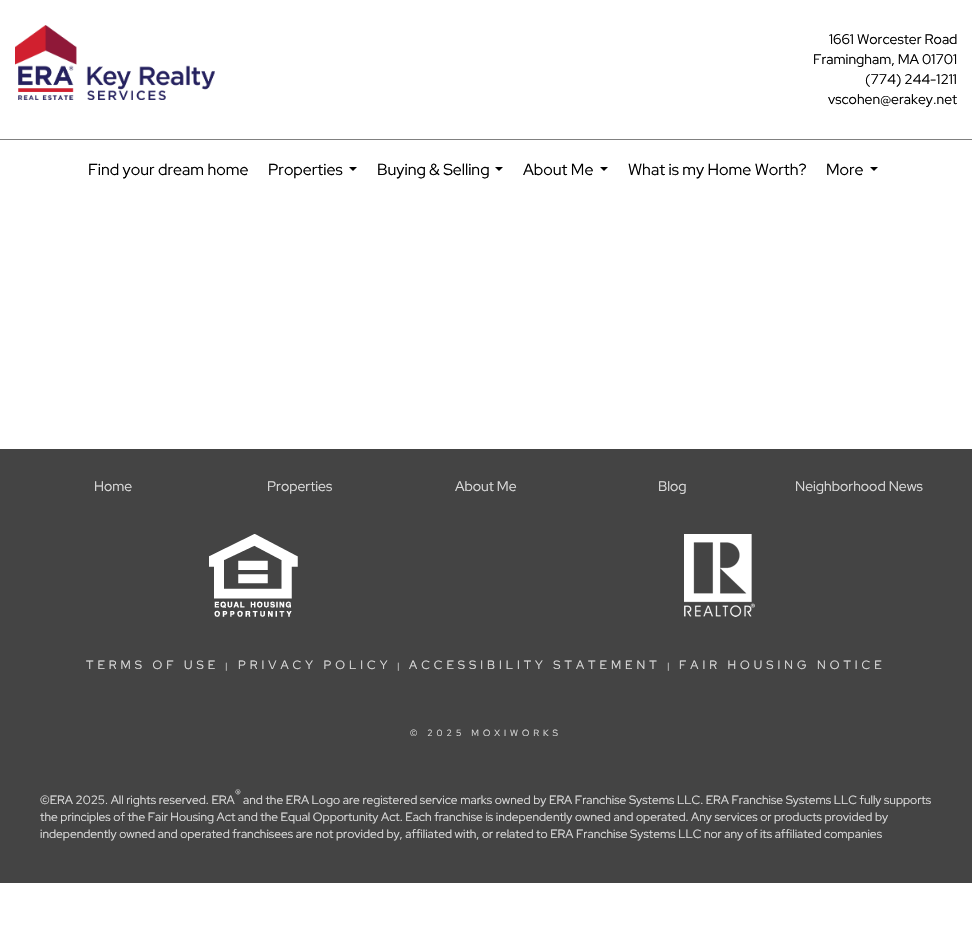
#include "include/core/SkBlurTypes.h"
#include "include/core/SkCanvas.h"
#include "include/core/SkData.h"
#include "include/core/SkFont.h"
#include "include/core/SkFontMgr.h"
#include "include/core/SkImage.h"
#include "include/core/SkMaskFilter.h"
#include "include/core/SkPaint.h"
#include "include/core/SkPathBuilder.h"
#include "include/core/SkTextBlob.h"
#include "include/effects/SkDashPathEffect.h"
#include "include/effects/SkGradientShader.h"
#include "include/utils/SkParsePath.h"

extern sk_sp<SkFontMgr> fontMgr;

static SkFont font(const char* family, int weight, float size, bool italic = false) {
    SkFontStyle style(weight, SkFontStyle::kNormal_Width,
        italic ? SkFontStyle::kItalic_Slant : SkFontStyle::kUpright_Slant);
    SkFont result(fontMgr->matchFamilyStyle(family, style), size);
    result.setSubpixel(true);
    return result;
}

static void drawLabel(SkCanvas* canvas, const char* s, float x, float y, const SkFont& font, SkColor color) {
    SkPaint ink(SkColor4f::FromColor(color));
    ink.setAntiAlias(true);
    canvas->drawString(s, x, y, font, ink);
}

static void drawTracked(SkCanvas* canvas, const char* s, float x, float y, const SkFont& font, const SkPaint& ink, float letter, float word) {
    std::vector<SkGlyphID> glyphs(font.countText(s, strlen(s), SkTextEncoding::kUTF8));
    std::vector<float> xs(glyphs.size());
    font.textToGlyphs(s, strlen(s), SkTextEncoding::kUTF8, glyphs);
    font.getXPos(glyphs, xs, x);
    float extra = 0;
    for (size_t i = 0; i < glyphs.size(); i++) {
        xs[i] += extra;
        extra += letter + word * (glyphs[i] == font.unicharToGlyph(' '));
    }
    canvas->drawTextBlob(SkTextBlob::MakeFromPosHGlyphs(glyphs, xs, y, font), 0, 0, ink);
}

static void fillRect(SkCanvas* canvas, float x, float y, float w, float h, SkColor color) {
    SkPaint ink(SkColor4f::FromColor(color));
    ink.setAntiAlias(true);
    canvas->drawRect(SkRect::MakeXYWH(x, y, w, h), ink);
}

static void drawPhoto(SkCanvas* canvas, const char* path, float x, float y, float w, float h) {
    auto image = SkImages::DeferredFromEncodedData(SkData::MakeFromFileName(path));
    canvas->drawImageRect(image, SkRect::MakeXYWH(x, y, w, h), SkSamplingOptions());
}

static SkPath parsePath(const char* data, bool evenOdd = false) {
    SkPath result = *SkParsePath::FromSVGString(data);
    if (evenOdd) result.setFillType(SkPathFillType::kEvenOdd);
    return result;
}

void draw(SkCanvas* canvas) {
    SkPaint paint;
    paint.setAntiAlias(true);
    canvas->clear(0xFFFFFFFF);
    fillRect(canvas, 0, 139, 972, 1, 0xFF808080);
    drawPhoto(canvas, "assets/img1.png", 15, 25, 200, 75);
    SkFont font1 = font("Red Hat Display", 400, 14);
    drawLabel(canvas, "1661 Worcester Road", 829, 44, font1, 0xFF000000);
    drawLabel(canvas, "Framingham, MA 01701", 813, 64, font1, 0xFF000000);
    drawLabel(canvas, "(774) 244-1211", 865, 84, font1, 0xFF000000);
    drawLabel(canvas, "vscohen@erakey.net", 828, 104, font1, 0xFF000000);
    SkFont font2 = font("Red Hat Display", 400, 16);
    drawLabel(canvas, "Find your dream home", 88, 175, font2, 0xFF000000);
    drawLabel(canvas, "Properties", 268, 175, font2, 0xFF000000);
    paint.setColor(0xFF000000);
    canvas->drawPath(parsePath("M349 167H357L353 171Z"), paint);
    drawLabel(canvas, "Buying & Selling", 377, 175, font2, 0xFF000000);
    canvas->drawPath(parsePath("M495 167H503L499 171Z"), paint);
    drawLabel(canvas, "About Me", 523, 175, font2, 0xFF000000);
    canvas->drawPath(parsePath("M600 167H608L604 171Z"), paint);
    drawLabel(canvas, "What is my Home Worth?", 628, 175, font2, 0xFF000000);
    drawLabel(canvas, "More", 826, 175, font2, 0xFF000000);
    canvas->drawPath(parsePath("M870 167H878L874 171Z"), paint);
    fillRect(canvas, 0, 449, 972, 434, 0xFF444444);
    drawLabel(canvas, "Home", 94, 491, font1, 0xFFDBDBDB);
    drawLabel(canvas, "Properties", 267, 491, font1, 0xFFDBDBDB);
    drawLabel(canvas, "About Me", 455, 491, font1, 0xFFDBDBDB);
    drawLabel(canvas, "Blog", 658, 491, font1, 0xFFDBDBDB);
    drawLabel(canvas, "Neighborhood News", 795, 491, font1, 0xFFDBDBDB);
    drawPhoto(canvas, "assets/img2.png", 209, 534, 89, 83);
    drawPhoto(canvas, "assets/img3.png", 684, 534, 71, 83);
    SkFont font3 = font("Red Hat Display", 400, 12);
    paint.setColor(0xFFDBDBDB);
    drawTracked(canvas, "TERMS OF USE", 86, 669, font3, paint, 4, 0);
    SkFont font4 = font("Red Hat Display", 400, 9);
    drawTracked(canvas, "|", 225, 669, font4, paint, 4, 0);
    drawTracked(canvas, "PRIVACY POLICY", 238, 669, font3, paint, 4, 0);
    drawTracked(canvas, "|", 397, 669, font4, paint, 4, 0);
    drawTracked(canvas, "ACCESSIBILITY STATEMENT", 409, 669, font3, paint, 4, 0);
    drawTracked(canvas, "|", 667, 669, font4, paint, 4, 0);
    drawTracked(canvas, "FAIR HOUSING NOTICE", 679, 669, font3, paint, 4, 0);
    drawTracked(canvas, "© 2025 MOXIWORKS", 410, 736, font4, paint, 4, 0);
    drawLabel(canvas, "®", 235, 798, font3, 0xFFDBDBDB);
    drawLabel(canvas, "©ERA 2025. All rights reserved. ERA", 40, 804, font3, 0xFFDBDBDB);
    drawLabel(canvas, "and the ERA Logo are registered service marks owned by ERA Franchise Systems LLC. ERA Franchise Systems LLC fully supports", 243, 804, font3, 0xFFDBDBDB);
    drawLabel(canvas, "the principles of the Fair Housing Act and the Equal Opportunity Act. Each franchise is independently owned and operated. Any services or products provided by", 40, 821, font3, 0xFFDBDBDB);
    drawLabel(canvas, "independently owned and operated franchisees are not provided by, affiliated with, or related to ERA Franchise Systems LLC nor any of its affiliated companies", 40, 838, font3, 0xFFDBDBDB);
}
